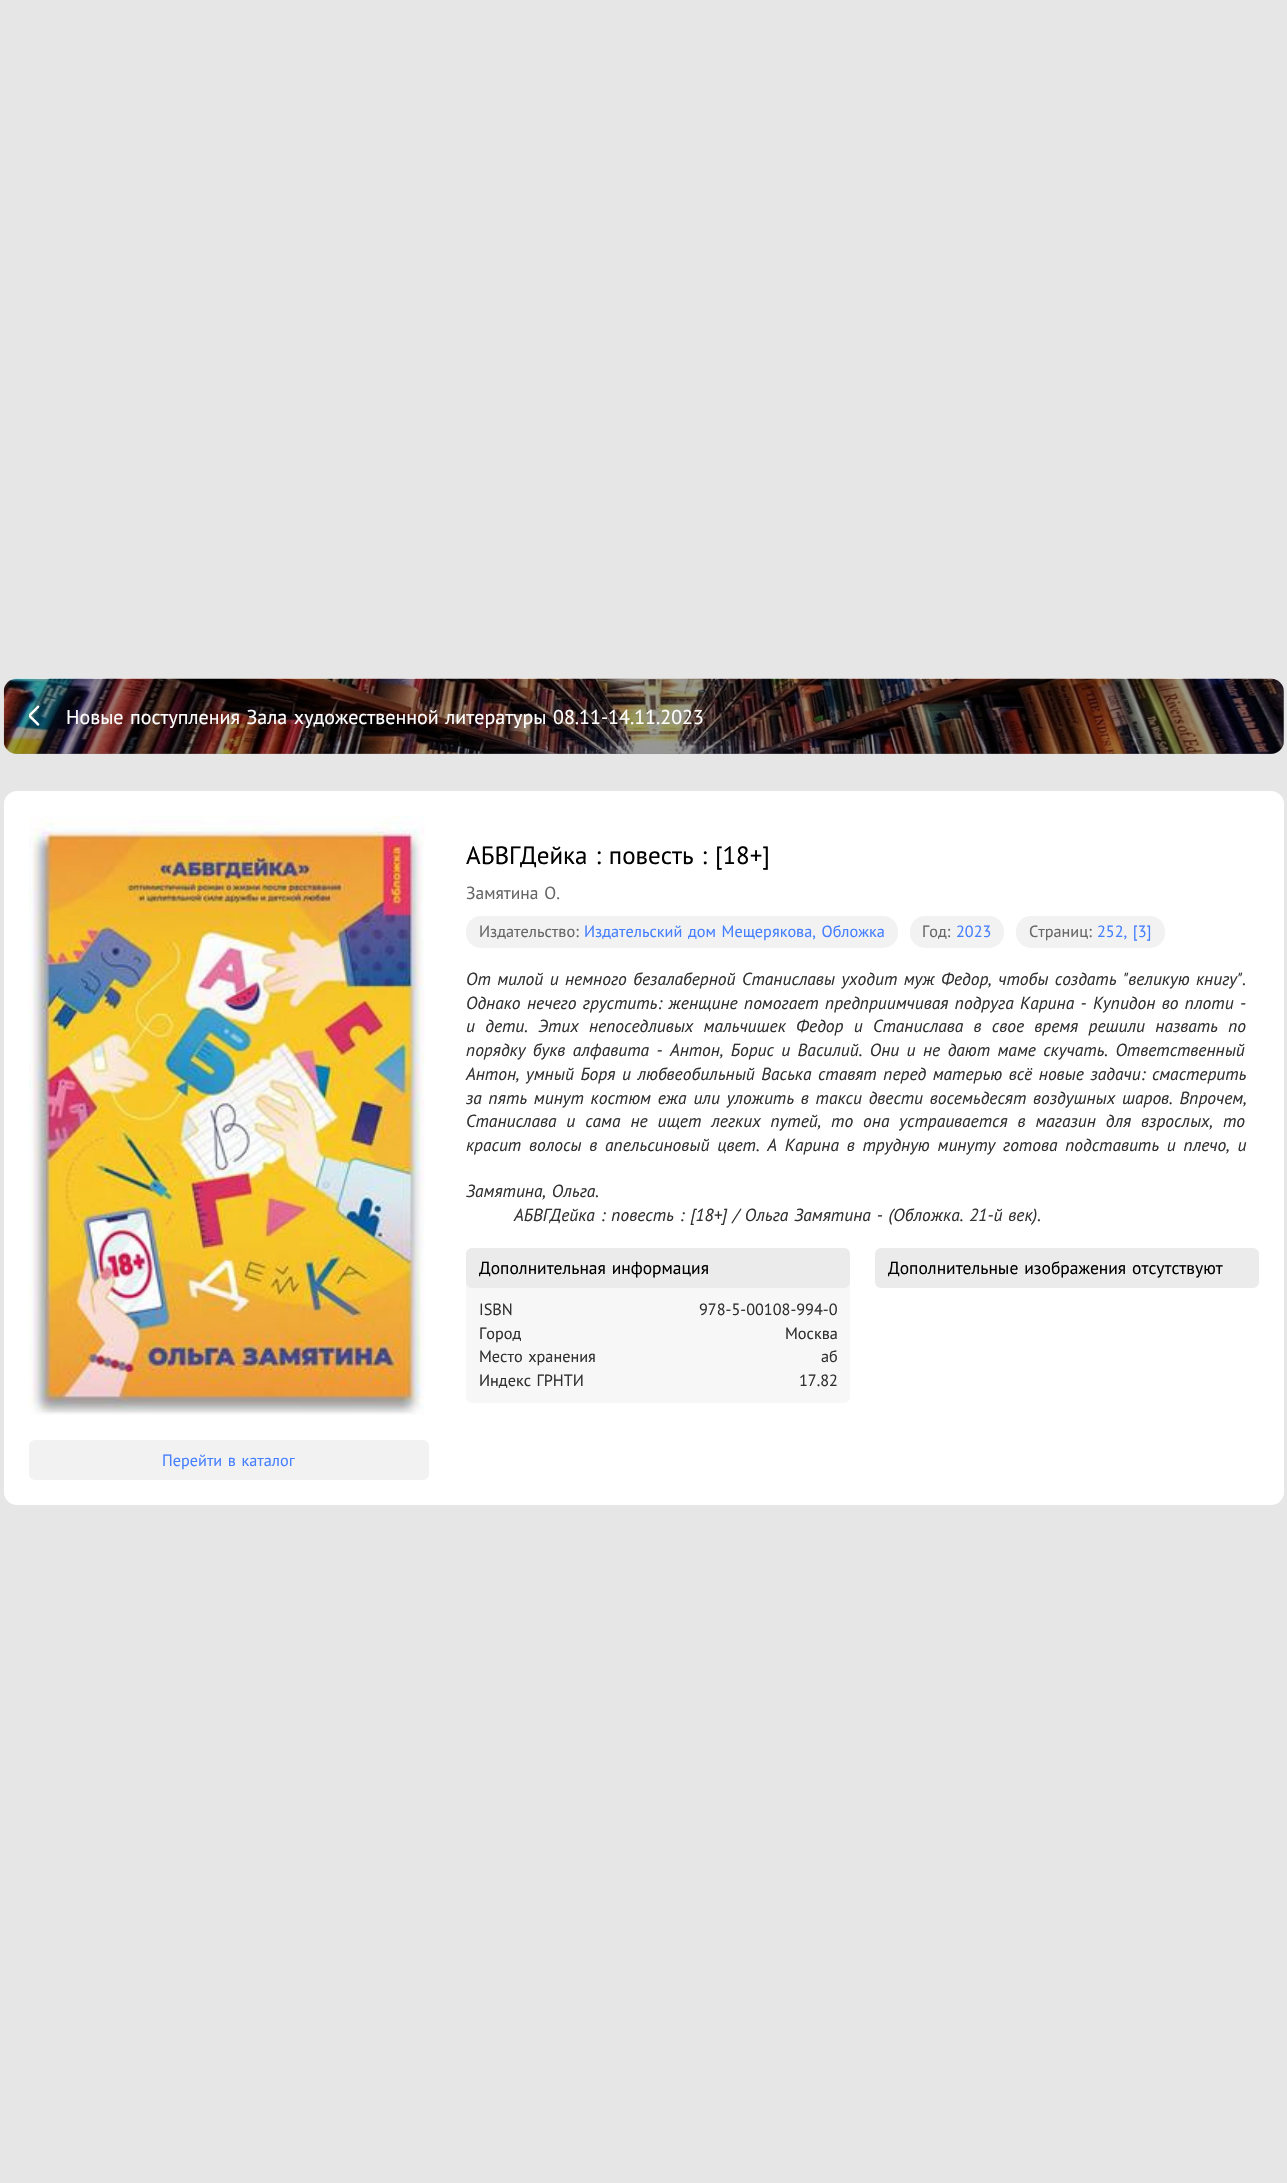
#include "include/core/SkBlurTypes.h"
#include "include/core/SkCanvas.h"
#include "include/core/SkData.h"
#include "include/core/SkFont.h"
#include "include/core/SkFontMgr.h"
#include "include/core/SkImage.h"
#include "include/core/SkMaskFilter.h"
#include "include/core/SkPaint.h"
#include "include/core/SkPathBuilder.h"
#include "include/core/SkTextBlob.h"
#include "include/effects/SkDashPathEffect.h"
#include "include/effects/SkGradientShader.h"
#include "include/utils/SkParsePath.h"

extern sk_sp<SkFontMgr> fontMgr;

static SkFont font(const char* family, int weight, float size, bool italic = false) {
    SkFontStyle style(weight, SkFontStyle::kNormal_Width,
        italic ? SkFontStyle::kItalic_Slant : SkFontStyle::kUpright_Slant);
    SkFont result(fontMgr->matchFamilyStyle(family, style), size);
    result.setSubpixel(true);
    return result;
}

static void drawLabel(SkCanvas* canvas, const char* s, float x, float y, const SkFont& font, SkColor color) {
    SkPaint ink(SkColor4f::FromColor(color));
    ink.setAntiAlias(true);
    canvas->drawString(s, x, y, font, ink);
}

static void drawTracked(SkCanvas* canvas, const char* s, float x, float y, const SkFont& font, const SkPaint& ink, float letter, float word) {
    std::vector<SkGlyphID> glyphs(font.countText(s, strlen(s), SkTextEncoding::kUTF8));
    std::vector<float> xs(glyphs.size());
    font.textToGlyphs(s, strlen(s), SkTextEncoding::kUTF8, glyphs);
    font.getXPos(glyphs, xs, x);
    float extra = 0;
    for (size_t i = 0; i < glyphs.size(); i++) {
        xs[i] += extra;
        extra += letter + word * (glyphs[i] == font.unicharToGlyph(' '));
    }
    canvas->drawTextBlob(SkTextBlob::MakeFromPosHGlyphs(glyphs, xs, y, font), 0, 0, ink);
}

static void fillRRect(SkCanvas* canvas, float x, float y, float w, float h, float radius, SkColor color) {
    SkPaint ink(SkColor4f::FromColor(color));
    ink.setAntiAlias(true);
    canvas->drawRoundRect(SkRect::MakeXYWH(x, y, w, h), radius, radius, ink);
}

static void drawPhoto(SkCanvas* canvas, const char* path, float x, float y, float w, float h) {
    auto image = SkImages::DeferredFromEncodedData(SkData::MakeFromFileName(path));
    canvas->drawImageRect(image, SkRect::MakeXYWH(x, y, w, h), SkSamplingOptions());
}

void draw(SkCanvas* canvas) {
    SkPaint paint;
    paint.setAntiAlias(true);
    canvas->clear(0xFFE6E6E6);
    drawPhoto(canvas, "assets/img1.png", 3, 678, 1281, 76);
    fillRRect(canvas, 4, 679, 1280, 75, 13, 0x66000000);
    drawPhoto(canvas, "assets/img2.png", 29, 705, 11, 21);
    SkFont font1 = font("PT Sans", 400, 20);
    paint.setColor(0xFFFFFFFF);
    drawTracked(canvas, "Новые поступления Зала художественной литературы 08.11-14.11.2023", 66, 724, font1, paint, 0, 1.25f);
    fillRRect(canvas, 4, 791, 1280, 714, 13, 0xFFFFFFFF);
    SkFont font2 = font("PT Sans", 400, 25);
    paint.setColor(0xFF000000);
    drawTracked(canvas, "АБВГДейка : повесть : [18+]", 466, 864, font2, paint, 0, 1.25f);
    SkFont font3 = font("PT Sans", 400, 17.5f);
    paint.setColor(0xFF666666);
    drawTracked(canvas, "Замятина О.", 466, 899, font3, paint, 0, 1.25f);
    fillRRect(canvas, 466, 916, 432, 32, 15, 0xFFF2F2F2);
    SkFont font4 = font("PT Sans", 400, 16.25f);
    drawLabel(canvas, "Издательство:", 479, 937, font4, 0xFF666666);
    paint.setColor(0xFF4680FF);
    drawTracked(canvas, "Издательский дом Мещерякова, Обложка", 584, 937, font4, paint, 0, 1.25f);
    fillRRect(canvas, 910, 916, 94, 32, 15, 0xFFF2F2F2);
    drawLabel(canvas, "Год:", 922, 937, font4, 0xFF666666);
    drawLabel(canvas, "2023", 956, 937, font4, 0xFF4680FF);
    fillRRect(canvas, 1016, 916, 149, 32, 15, 0xFFF2F2F2);
    drawLabel(canvas, "Страниц:", 1029, 937, font4, 0xFF666666);
    drawTracked(canvas, "252, [3]", 1097, 937, font4, paint, 0, 1.25f);
    SkFont font5 = font("PT Sans", 400, 17.5f, true);
    paint.setColor(0xFF313131);
    drawTracked(canvas, "От милой и немного безалаберной Станиславы уходит муж Федор, чтобы создать \"великую книгу\".", 466, 985, font5, paint, 0, 1.75f);
    drawTracked(canvas, "Однако нечего грустить: женщине помогает предприимчивая подруга Карина - Купидон во плоти -", 466, 1009, font5, paint, 0, 1.75f);
    drawTracked(canvas, "и дети. Этих непоседливых мальчишек Федор и Станислава в свое время решили назвать по", 466, 1032, font5, paint, 0, 5.6f);
    drawTracked(canvas, "порядку букв алфавита - Антон, Борис и Василий. Они и не дают маме скучать. Ответственный", 466, 1056, font5, paint, 0, 2.75f);
    drawTracked(canvas, "Антон, умный Боря и любвеобильный Васька ставят перед матерью всё новые задачи: смастерить", 466, 1080, font5, paint, 0, 1.9f);
    drawTracked(canvas, "за пять минут костюм ежа или уложить в такси двести восемьдесят воздушных шаров. Впрочем,", 466, 1104, font5, paint, 0, 2.1f);
    drawTracked(canvas, "Станислава и сама не ищет легких путей, то она устраивается в магазин для взрослых, то", 466, 1127, font5, paint, 0, 5.25f);
    drawTracked(canvas, "красит волосы в апельсиновый цвет. А Карина в трудную минуту готова подставить и плечо, и", 466, 1151, font5, paint, 0, 3.1f);
    drawTracked(canvas, "Замятина, Ольга.", 466, 1197, font5, paint, 0, 1.25f);
    drawTracked(canvas, "АБВГДейка : повесть : [18+] / Ольга Замятина - (Обложка. 21-й век).", 514, 1221, font5, paint, 0, 1.25f);
    fillRRect(canvas, 466, 1248, 384, 155, 6, 0xFFF7F7F7);
    fillRRect(canvas, 466, 1248, 384, 40, 6, 0xFFEBEBEB);
    paint.setColor(0xFF000000);
    drawTracked(canvas, "Дополнительная информация", 479, 1274, font3, paint, 0, 1.25f);
    drawLabel(canvas, "ISBN", 479, 1315, font4, 0xFF313131);
    drawLabel(canvas, "978-5-00108-994-0", 699, 1315, font4, 0xFF313131);
    drawLabel(canvas, "Город", 479, 1339, font4, 0xFF313131);
    drawLabel(canvas, "Москва", 785, 1339, font4, 0xFF313131);
    paint.setColor(0xFF313131);
    drawTracked(canvas, "Место хранения", 479, 1362, font4, paint, 0, 1.25f);
    drawLabel(canvas, "аб", 821, 1362, font4, 0xFF313131);
    drawTracked(canvas, "Индекс ГРНТИ", 479, 1386, font4, paint, 0, 1.25f);
    drawLabel(canvas, "17.82", 799, 1386, font4, 0xFF313131);
    fillRRect(canvas, 875, 1248, 384, 40, 6, 0xFFEBEBEB);
    paint.setColor(0xFF000000);
    drawTracked(canvas, "Дополнительные изображения отсутствуют", 888, 1274, font3, paint, 0, 1.25f);
    drawPhoto(canvas, "assets/img3.png", 29, 816, 396, 599);
    fillRRect(canvas, 29, 1440, 400, 40, 6, 0xFFF2F2F2);
    paint.setColor(0xFF4680FF);
    drawTracked(canvas, "Перейти в каталог", 162, 1466, font4, paint, 0, 1.25f);
}
